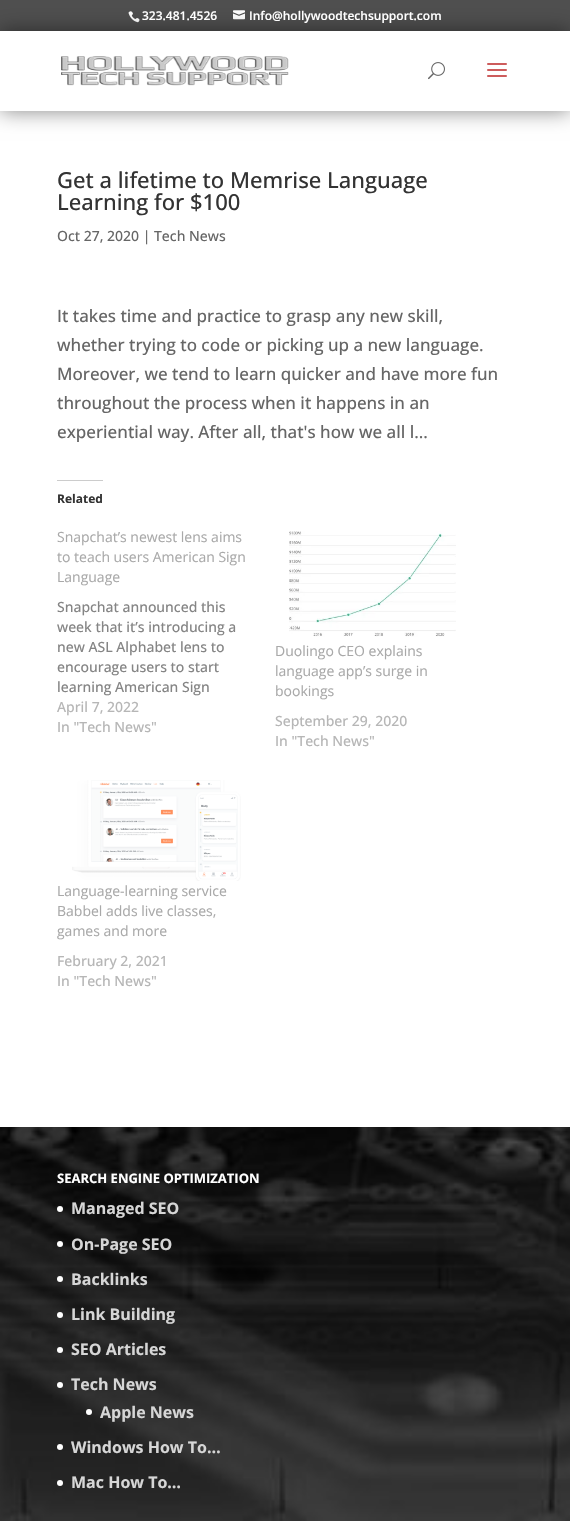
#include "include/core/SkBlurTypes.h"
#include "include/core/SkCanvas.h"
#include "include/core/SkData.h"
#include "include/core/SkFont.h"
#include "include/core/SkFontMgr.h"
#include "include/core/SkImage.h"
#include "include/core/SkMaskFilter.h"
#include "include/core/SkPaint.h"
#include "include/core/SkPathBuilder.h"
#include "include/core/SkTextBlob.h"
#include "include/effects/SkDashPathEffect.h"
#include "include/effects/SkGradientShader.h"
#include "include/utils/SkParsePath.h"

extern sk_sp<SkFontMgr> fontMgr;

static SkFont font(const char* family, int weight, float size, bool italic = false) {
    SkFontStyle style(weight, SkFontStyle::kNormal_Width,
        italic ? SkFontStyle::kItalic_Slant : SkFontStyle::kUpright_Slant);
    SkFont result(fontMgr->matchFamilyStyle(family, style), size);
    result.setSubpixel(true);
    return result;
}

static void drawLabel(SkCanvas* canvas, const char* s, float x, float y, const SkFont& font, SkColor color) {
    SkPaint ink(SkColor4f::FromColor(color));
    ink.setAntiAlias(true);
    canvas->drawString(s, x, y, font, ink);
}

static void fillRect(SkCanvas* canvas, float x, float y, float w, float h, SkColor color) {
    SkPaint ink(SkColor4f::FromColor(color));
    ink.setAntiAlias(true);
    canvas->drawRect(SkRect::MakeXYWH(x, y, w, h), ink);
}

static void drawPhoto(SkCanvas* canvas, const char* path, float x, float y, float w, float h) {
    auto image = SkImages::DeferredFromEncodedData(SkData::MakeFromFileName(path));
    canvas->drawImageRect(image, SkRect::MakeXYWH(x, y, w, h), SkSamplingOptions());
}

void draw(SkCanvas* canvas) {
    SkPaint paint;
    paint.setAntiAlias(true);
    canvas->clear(0xFFFFFFFF);
    drawPhoto(canvas, "assets/img1.png", 0, 1127, 570, 394);
    fillRect(canvas, 0, 0, 570, 31, 0xFF4F4F4F);
    drawPhoto(canvas, "assets/img5.png", 128, 11, 12, 12);
    drawPhoto(canvas, "assets/img6.png", 233, 10, 12, 10);
    paint.setColor(0x7A000000);
    paint.setMaskFilter(SkMaskFilter::MakeBlur(kNormal_SkBlurStyle, 10));
    canvas->drawRect(SkRect::MakeXYWH(0, 31, 570, 80), paint);
    paint.setMaskFilter(nullptr);
    fillRect(canvas, 0, 31, 570, 80, 0xFFFFFFFF);
    drawPhoto(canvas, "assets/img2.png", 61, 56, 228, 30);
    drawPhoto(canvas, "assets/img3.png", 428, 62, 17, 18);
    drawPhoto(canvas, "assets/img4.png", 487, 63, 20, 14);
    SkFont font1 = font("Open Sans", 600, 12);
    drawLabel(canvas, "323.481.4526", 142, 20, font1, 0xFFFFFFFF);
    drawLabel(canvas, "Info@hollywoodtechsupport.com", 249, 20, font1, 0xFFFFFFFF);
    SkFont font2 = font("Open Sans", 500, 22);
    drawLabel(canvas, "Get a lifetime to Memrise Language", 57, 188, font2, 0xFF333333);
    drawLabel(canvas, "Learning for $100", 57, 210, font2, 0xFF333333);
    SkFont font3 = font("Open Sans", 500, 14);
    drawLabel(canvas, "Oct 27, 2020 | Tech News", 57, 241, font3, 0xFF666666);
    SkFont font4 = font("Open Sans", 500, 17);
    drawLabel(canvas, "It takes time and practice to grasp any new skill,", 57, 322, font4, 0xFF666666);
    drawLabel(canvas, "whether trying to code or picking up a new language.", 57, 351, font4, 0xFF666666);
    drawLabel(canvas, "Moreover, we tend to learn quicker and have more fun", 57, 380, font4, 0xFF666666);
    drawLabel(canvas, "throughout the process when it happens in an", 57, 409, font4, 0xFF666666);
    drawLabel(canvas, "experiential way. After all, that's how we all l...", 57, 438, font4, 0xFF666666);
    fillRect(canvas, 57, 480, 46, 1, 0xFFCCCCCC);
    SkFont font5 = font("Open Sans", 700, 12);
    drawLabel(canvas, "Related", 57, 503, font5, 0xFF333333);
    SkFont font6 = font("Open Sans", 400, 14);
    drawLabel(canvas, "Snapchat’s newest lens aims", 57, 542, font6, 0xFFA9A9A9);
    drawLabel(canvas, "to teach users American Sign", 57, 562, font6, 0xFFA9A9A9);
    drawLabel(canvas, "Language", 57, 582, font6, 0xFFA9A9A9);
    drawLabel(canvas, "Snapchat announced this", 57, 612, font3, 0xFF858585);
    drawLabel(canvas, "week that it’s introducing a", 57, 632, font3, 0xFF858585);
    drawLabel(canvas, "new ASL Alphabet lens to", 57, 652, font3, 0xFF858585);
    drawLabel(canvas, "encourage users to start", 57, 672, font3, 0xFF858585);
    drawLabel(canvas, "learning American Sign", 57, 692, font3, 0xFF858585);
    drawLabel(canvas, "April 7, 2022", 57, 712, font3, 0xFFB6B6B6);
    drawLabel(canvas, "In \"Tech News\"", 57, 732, font3, 0xFFB6B6B6);
    drawPhoto(canvas, "assets/img7.png", 289, 531, 167, 106);
    drawLabel(canvas, "Duolingo CEO explains", 275, 656, font6, 0xFFA9A9A9);
    drawLabel(canvas, "language app’s surge in", 275, 676, font6, 0xFFA9A9A9);
    drawLabel(canvas, "bookings", 275, 696, font6, 0xFFA9A9A9);
    drawLabel(canvas, "September 29, 2020", 275, 726, font3, 0xFFB6B6B6);
    drawLabel(canvas, "In \"Tech News\"", 275, 746, font3, 0xFFB6B6B6);
    drawPhoto(canvas, "assets/img8.png", 72, 780, 169, 101);
    drawLabel(canvas, "Language-learning service", 57, 896, font6, 0xFFA9A9A9);
    drawLabel(canvas, "Babbel adds live classes,", 57, 916, font6, 0xFFA9A9A9);
    drawLabel(canvas, "games and more", 57, 936, font6, 0xFFA9A9A9);
    drawLabel(canvas, "February 2, 2021", 57, 966, font3, 0xFFB6B6B6);
    drawLabel(canvas, "In \"Tech News\"", 57, 986, font3, 0xFFB6B6B6);
    SkFont font7 = font("Open Sans", 700, 13);
    drawLabel(canvas, "SEARCH ENGINE OPTIMIZATION", 57, 1183, font7, 0xFFFFFFFF);
    paint.setColor(0xFFFFFFFF);
    canvas->drawCircle(60, 1209, 3, paint);
    SkFont font8 = font("Open Sans", 700, 16);
    drawLabel(canvas, "Managed SEO", 71, 1214, font8, 0xFFD6D6D6);
    canvas->drawCircle(60, 1244, 3, paint);
    drawLabel(canvas, "On-Page SEO", 71, 1250, font8, 0xFFD6D6D6);
    canvas->drawCircle(60, 1279, 3, paint);
    drawLabel(canvas, "Backlinks", 71, 1285, font8, 0xFFD6D6D6);
    canvas->drawCircle(60, 1315, 3, paint);
    drawLabel(canvas, "Link Building", 71, 1320, font8, 0xFFD6D6D6);
    canvas->drawCircle(60, 1350, 3, paint);
    drawLabel(canvas, "SEO Articles", 71, 1355, font8, 0xFFD6D6D6);
    canvas->drawCircle(60, 1385, 3, paint);
    drawLabel(canvas, "Tech News", 71, 1390, font8, 0xFFD6D6D6);
    canvas->drawCircle(89, 1412, 3, paint);
    drawLabel(canvas, "Apple News", 100, 1418, font8, 0xFFD6D6D6);
    canvas->drawCircle(60, 1447, 3, paint);
    drawLabel(canvas, "Windows How To…", 71, 1453, font8, 0xFFD6D6D6);
    canvas->drawCircle(60, 1483, 3, paint);
    drawLabel(canvas, "Mac How To…", 71, 1488, font8, 0xFFD6D6D6);
}
